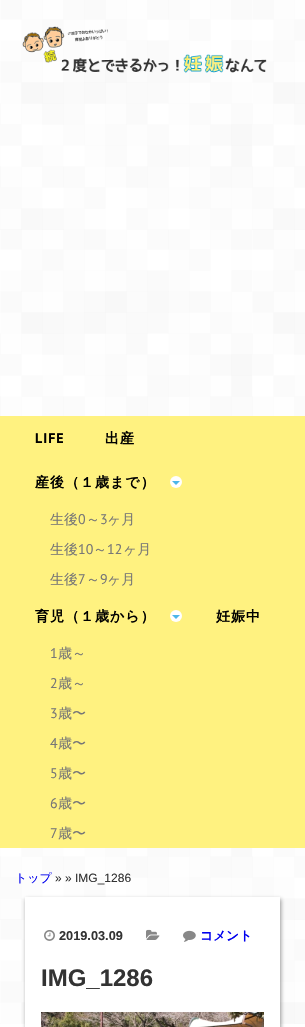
#include "include/core/SkBlurTypes.h"
#include "include/core/SkCanvas.h"
#include "include/core/SkData.h"
#include "include/core/SkFont.h"
#include "include/core/SkFontMgr.h"
#include "include/core/SkImage.h"
#include "include/core/SkMaskFilter.h"
#include "include/core/SkPaint.h"
#include "include/core/SkPathBuilder.h"
#include "include/core/SkTextBlob.h"
#include "include/effects/SkDashPathEffect.h"
#include "include/effects/SkGradientShader.h"
#include "include/utils/SkParsePath.h"

extern sk_sp<SkFontMgr> fontMgr;

static SkFont font(const char* family, int weight, float size, bool italic = false) {
    SkFontStyle style(weight, SkFontStyle::kNormal_Width,
        italic ? SkFontStyle::kItalic_Slant : SkFontStyle::kUpright_Slant);
    SkFont result(fontMgr->matchFamilyStyle(family, style), size);
    result.setSubpixel(true);
    return result;
}

static void drawLabel(SkCanvas* canvas, const char* s, float x, float y, const SkFont& font, SkColor color) {
    SkPaint ink(SkColor4f::FromColor(color));
    ink.setAntiAlias(true);
    canvas->drawString(s, x, y, font, ink);
}

static void drawTracked(SkCanvas* canvas, const char* s, float x, float y, const SkFont& font, const SkPaint& ink, float letter, float word) {
    std::vector<SkGlyphID> glyphs(font.countText(s, strlen(s), SkTextEncoding::kUTF8));
    std::vector<float> xs(glyphs.size());
    font.textToGlyphs(s, strlen(s), SkTextEncoding::kUTF8, glyphs);
    font.getXPos(glyphs, xs, x);
    float extra = 0;
    for (size_t i = 0; i < glyphs.size(); i++) {
        xs[i] += extra;
        extra += letter + word * (glyphs[i] == font.unicharToGlyph(' '));
    }
    canvas->drawTextBlob(SkTextBlob::MakeFromPosHGlyphs(glyphs, xs, y, font), 0, 0, ink);
}

static void fillRect(SkCanvas* canvas, float x, float y, float w, float h, SkColor color) {
    SkPaint ink(SkColor4f::FromColor(color));
    ink.setAntiAlias(true);
    canvas->drawRect(SkRect::MakeXYWH(x, y, w, h), ink);
}

static void drawPhoto(SkCanvas* canvas, const char* path, float x, float y, float w, float h) {
    auto image = SkImages::DeferredFromEncodedData(SkData::MakeFromFileName(path));
    canvas->drawImageRect(image, SkRect::MakeXYWH(x, y, w, h), SkSamplingOptions());
}

static SkPath parsePath(const char* data, bool evenOdd = false) {
    SkPath result = *SkParsePath::FromSVGString(data);
    if (evenOdd) result.setFillType(SkPathFillType::kEvenOdd);
    return result;
}

void draw(SkCanvas* canvas) {
    SkPaint paint;
    paint.setAntiAlias(true);
    canvas->clear(0xFFFFFFFF);
    drawPhoto(canvas, "assets/img1.png", 0, 0, 305, 1024);
    drawPhoto(canvas, "assets/img2.png", 22, 26, 245, 47);
    fillRect(canvas, 0, 416, 305, 432, 0xFFFFF280);
    SkFont font1 = font("PT Sans", 700, 14);
    paint.setColor(0xFF000000);
    drawTracked(canvas, "LIFE", 35, 443, font1, paint, 1, 0);
    SkFont font2 = font("WenQuanYi Zen Hei", 700, 14);
    drawTracked(canvas, "出産", 105, 443, font2, paint, 1, 0);
    drawTracked(canvas, "産後（１歳まで）", 35, 487, font2, paint, 1, 0);
    paint.setColor(0xFFFFFFFF);
    canvas->drawCircle(176, 482, 6, paint);
    paint.setColor(0xFF4CB6EA);
    canvas->drawPath(parsePath("M172 481H180L176 485Z"), paint);
    SkFont font3 = font("WenQuanYi Zen Hei", 500, 14);
    drawLabel(canvas, "生後", 50, 524, font3, 0xFF777777);
    SkFont font4 = font("PT Sans", 400, 14);
    drawLabel(canvas, "0", 78, 524, font4, 0xFF777777);
    drawLabel(canvas, "～", 86, 524, font3, 0xFF777777);
    drawLabel(canvas, "3", 100, 524, font4, 0xFF777777);
    drawLabel(canvas, "ヶ月", 107, 524, font3, 0xFF777777);
    drawLabel(canvas, "生後", 50, 554, font3, 0xFF777777);
    drawLabel(canvas, "10", 78, 554, font4, 0xFF777777);
    drawLabel(canvas, "～", 93, 554, font3, 0xFF777777);
    drawLabel(canvas, "12", 107, 554, font4, 0xFF777777);
    drawLabel(canvas, "ヶ月", 123, 554, font3, 0xFF777777);
    drawLabel(canvas, "生後", 50, 584, font3, 0xFF777777);
    drawLabel(canvas, "7", 78, 584, font4, 0xFF777777);
    drawLabel(canvas, "～", 86, 584, font3, 0xFF777777);
    drawLabel(canvas, "9", 100, 584, font4, 0xFF777777);
    drawLabel(canvas, "ヶ月", 107, 584, font3, 0xFF777777);
    paint.setColor(0xFF000000);
    drawTracked(canvas, "育児（１歳から）", 35, 621, font2, paint, 1, 0);
    paint.setColor(0xFFFFFFFF);
    canvas->drawCircle(176, 616, 6, paint);
    paint.setColor(0xFF4CB6EA);
    canvas->drawPath(parsePath("M172 615H180L176 619Z"), paint);
    drawLabel(canvas, "1", 50, 658, font4, 0xFF777777);
    drawLabel(canvas, "歳～", 58, 658, font3, 0xFF777777);
    drawLabel(canvas, "2", 50, 688, font4, 0xFF777777);
    drawLabel(canvas, "歳～", 58, 688, font3, 0xFF777777);
    drawLabel(canvas, "3", 50, 718, font4, 0xFF777777);
    drawLabel(canvas, "歳〜", 58, 718, font3, 0xFF777777);
    drawLabel(canvas, "4", 50, 748, font4, 0xFF777777);
    drawLabel(canvas, "歳〜", 58, 748, font3, 0xFF777777);
    drawLabel(canvas, "5", 50, 778, font4, 0xFF777777);
    drawLabel(canvas, "歳〜", 58, 778, font3, 0xFF777777);
    drawLabel(canvas, "6", 50, 808, font4, 0xFF777777);
    drawLabel(canvas, "歳〜", 58, 808, font3, 0xFF777777);
    drawLabel(canvas, "7", 50, 838, font4, 0xFF777777);
    drawLabel(canvas, "歳〜", 58, 838, font3, 0xFF777777);
    paint.setColor(0xFF000000);
    drawTracked(canvas, "妊娠中", 216, 621, font2, paint, 1, 0);
    SkFont font5 = font("WenQuanYi Zen Hei", 500, 12);
    drawLabel(canvas, "トップ", 15, 882, font5, 0xFF0000EE);
    SkFont font6 = font("Liberation Sans", 400, 12);
    drawLabel(canvas, "» » IMG_1286", 55, 882, font6, 0xFF333333);
    paint.setColor(0x80323232);
    paint.setMaskFilter(SkMaskFilter::MakeBlur(kNormal_SkBlurStyle, 2));
    canvas->drawRect(SkRect::MakeXYWH(26, 899, 255, 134), paint);
    paint.setMaskFilter(nullptr);
    fillRect(canvas, 25, 897, 255, 130, 0xFFFFFFFF);
    drawPhoto(canvas, "assets/img3.png", 44, 930, 11, 11);
    SkFont font7 = font("Liberation Sans", 700, 12.75f);
    drawLabel(canvas, "2019.03.09", 59, 940, font7, 0xFF333333);
    drawPhoto(canvas, "assets/img4.png", 146, 929, 14, 11);
    drawPhoto(canvas, "assets/img5.png", 183, 930, 13, 12);
    SkFont font8 = font("WenQuanYi Zen Hei", 700, 12.75f);
    drawLabel(canvas, "コメント", 200, 940, font8, 0xFF0000EE);
    SkFont font9 = font("Liberation Sans", 700, 24);
    drawLabel(canvas, "IMG_1286", 41, 986, font9, 0xFF333333);
    drawPhoto(canvas, "assets/img6.png", 41, 1012, 223, 15);
}
